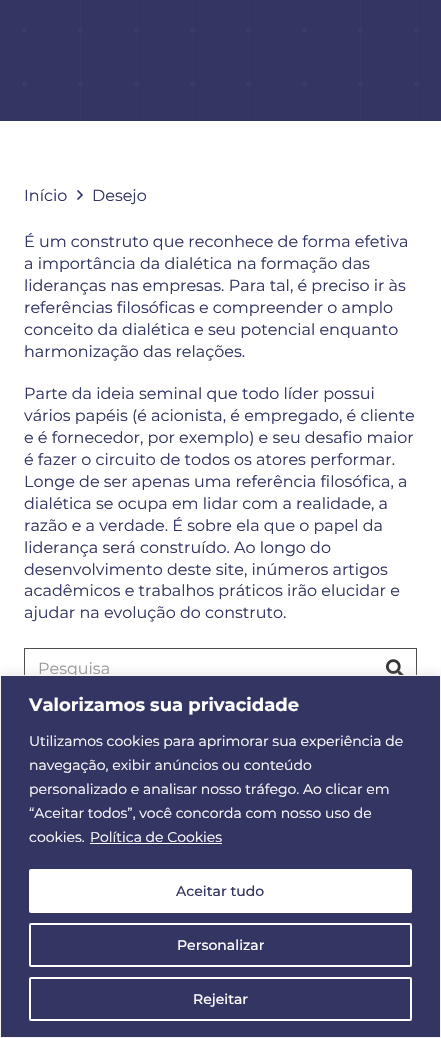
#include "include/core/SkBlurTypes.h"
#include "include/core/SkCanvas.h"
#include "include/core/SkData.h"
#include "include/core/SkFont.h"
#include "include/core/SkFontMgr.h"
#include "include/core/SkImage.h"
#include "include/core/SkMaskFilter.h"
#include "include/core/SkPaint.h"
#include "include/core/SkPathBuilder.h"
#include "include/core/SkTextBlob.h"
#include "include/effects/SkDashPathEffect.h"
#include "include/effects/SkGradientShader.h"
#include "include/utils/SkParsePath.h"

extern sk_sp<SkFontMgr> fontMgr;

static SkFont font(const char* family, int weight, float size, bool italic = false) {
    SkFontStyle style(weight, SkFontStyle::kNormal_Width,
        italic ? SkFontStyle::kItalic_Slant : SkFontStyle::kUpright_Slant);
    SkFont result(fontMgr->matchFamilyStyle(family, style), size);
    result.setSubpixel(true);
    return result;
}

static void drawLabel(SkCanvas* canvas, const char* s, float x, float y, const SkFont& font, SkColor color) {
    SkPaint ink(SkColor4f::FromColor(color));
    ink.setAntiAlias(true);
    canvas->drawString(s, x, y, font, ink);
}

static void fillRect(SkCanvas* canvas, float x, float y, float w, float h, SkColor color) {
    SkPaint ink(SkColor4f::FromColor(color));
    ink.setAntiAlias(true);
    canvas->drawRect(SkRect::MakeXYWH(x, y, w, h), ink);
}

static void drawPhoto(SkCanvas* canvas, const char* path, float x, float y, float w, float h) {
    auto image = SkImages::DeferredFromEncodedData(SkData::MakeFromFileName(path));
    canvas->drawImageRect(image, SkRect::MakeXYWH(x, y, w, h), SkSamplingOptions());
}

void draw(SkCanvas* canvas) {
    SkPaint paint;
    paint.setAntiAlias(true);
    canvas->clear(0xFFFFFFFF);
    drawPhoto(canvas, "assets/img1.png", 0, 0, 441, 121);
    SkFont font1 = font("Montserrat", 400, 16);
    drawLabel(canvas, "Início", 24, 201, font1, 0xFF333563);
    drawPhoto(canvas, "assets/img2.png", 77, 190, 6, 10);
    drawLabel(canvas, "Desejo", 92, 201, font1, 0xFF333563);
    drawLabel(canvas, "É um construto que reconhece de forma efetiva", 24, 247, font1, 0xFF333563);
    drawLabel(canvas, "a importância da dialética na formação das", 24, 269, font1, 0xFF333563);
    drawLabel(canvas, "lideranças nas empresas. Para tal, é preciso ir às", 24, 291, font1, 0xFF333563);
    drawLabel(canvas, "referências filosóficas e compreender o amplo", 24, 313, font1, 0xFF333563);
    drawLabel(canvas, "conceito da dialética e seu potencial enquanto", 24, 335, font1, 0xFF333563);
    drawLabel(canvas, "harmonização das relações.", 24, 357, font1, 0xFF333563);
    drawLabel(canvas, "Parte da ideia seminal que todo líder possui", 24, 399, font1, 0xFF333563);
    drawLabel(canvas, "vários papéis (é acionista, é empregado, é cliente", 24, 421, font1, 0xFF333563);
    drawLabel(canvas, "e é fornecedor, por exemplo) e seu desafio maior", 24, 443, font1, 0xFF333563);
    drawLabel(canvas, "é fazer o circuito de todos os atores performar.", 24, 465, font1, 0xFF333563);
    drawLabel(canvas, "Longe de ser apenas uma referência filosófica, a", 24, 487, font1, 0xFF333563);
    drawLabel(canvas, "dialética se ocupa em lidar com a realidade, a", 24, 509, font1, 0xFF333563);
    drawLabel(canvas, "razão e a verdade. É sobre ela que o papel da", 24, 531, font1, 0xFF333563);
    drawLabel(canvas, "liderança será construído. Ao longo do", 24, 553, font1, 0xFF333563);
    drawLabel(canvas, "desenvolvimento deste site, inúmeros artigos", 24, 575, font1, 0xFF333563);
    drawLabel(canvas, "acadêmicos e trabalhos práticos irão elucidar e", 24, 596, font1, 0xFF333563);
    drawLabel(canvas, "ajudar na evolução do construto.", 24, 618, font1, 0xFF333563);
    paint.setStroke(true);
    paint.setStrokeWidth(1);
    paint.setColor(0xFF4F4F4F);
    canvas->drawRect(SkRect::MakeXYWH(24.5f, 648.5f, 392, 40), paint);
    drawLabel(canvas, "Pesquisa", 38, 674, font1, 0xFF999999);
    drawPhoto(canvas, "assets/img3.png", 386, 659, 18, 16);
    paint.setStroke(false);
    paint.setColor(0x4DACABAB);
    paint.setMaskFilter(SkMaskFilter::MakeBlur(kNormal_SkBlurStyle, 5));
    canvas->drawRect(SkRect::MakeXYWH(0, 674, 441, 363), paint);
    paint.setMaskFilter(nullptr);
    paint.setColor(0xFF333563);
    canvas->drawRect(SkRect::MakeXYWH(0.5f, 675.5f, 440, 362), paint);
    paint.setStroke(true);
    paint.setColor(0xFFF4F4F4);
    canvas->drawRect(SkRect::MakeXYWH(0.5f, 675.5f, 440, 362), paint);
    SkFont font2 = font("Montserrat", 700, 18);
    drawLabel(canvas, "Valorizamos sua privacidade", 29, 711, font2, 0xFFFFFFFF);
    SkFont font3 = font("Montserrat", 400, 14);
    drawLabel(canvas, "Utilizamos cookies para aprimorar sua experiência de", 29, 746, font3, 0xFFFFFFFF);
    drawLabel(canvas, "navegação, exibir anúncios ou conteúdo", 29, 770, font3, 0xFFFFFFFF);
    drawLabel(canvas, "personalizado e analisar nosso tráfego. Ao clicar em", 29, 794, font3, 0xFFFFFFFF);
    drawLabel(canvas, "“Aceitar todos”, você concorda com nosso uso de", 29, 818, font3, 0xFFFFFFFF);
    drawLabel(canvas, "cookies.", 29, 842, font3, 0xFFFFFFFF);
    drawLabel(canvas, "Política de Cookies", 90, 842, font3, 0xFFFFFFFF);
    fillRect(canvas, 90, 843, 132, 1, 0xFFFFFFFF);
    paint.setStroke(false);
    paint.setColor(0xFFFFFFFF);
    canvas->drawRoundRect(SkRect::MakeXYWH(30, 870, 381, 42), 1, 1, paint);
    paint.setStroke(true);
    paint.setStrokeWidth(2);
    canvas->drawRoundRect(SkRect::MakeXYWH(30, 870, 381, 42), 1, 1, paint);
    SkFont font4 = font("Montserrat", 500, 14);
    drawLabel(canvas, "Aceitar tudo", 176, 896, font4, 0xFF333563);
    canvas->drawRoundRect(SkRect::MakeXYWH(30, 924, 381, 42), 1, 1, paint);
    drawLabel(canvas, "Personalizar", 177, 950, font4, 0xFFFFFFFF);
    canvas->drawRoundRect(SkRect::MakeXYWH(30, 978, 381, 42), 1, 1, paint);
    drawLabel(canvas, "Rejeitar", 193, 1004, font4, 0xFFFFFFFF);
}
